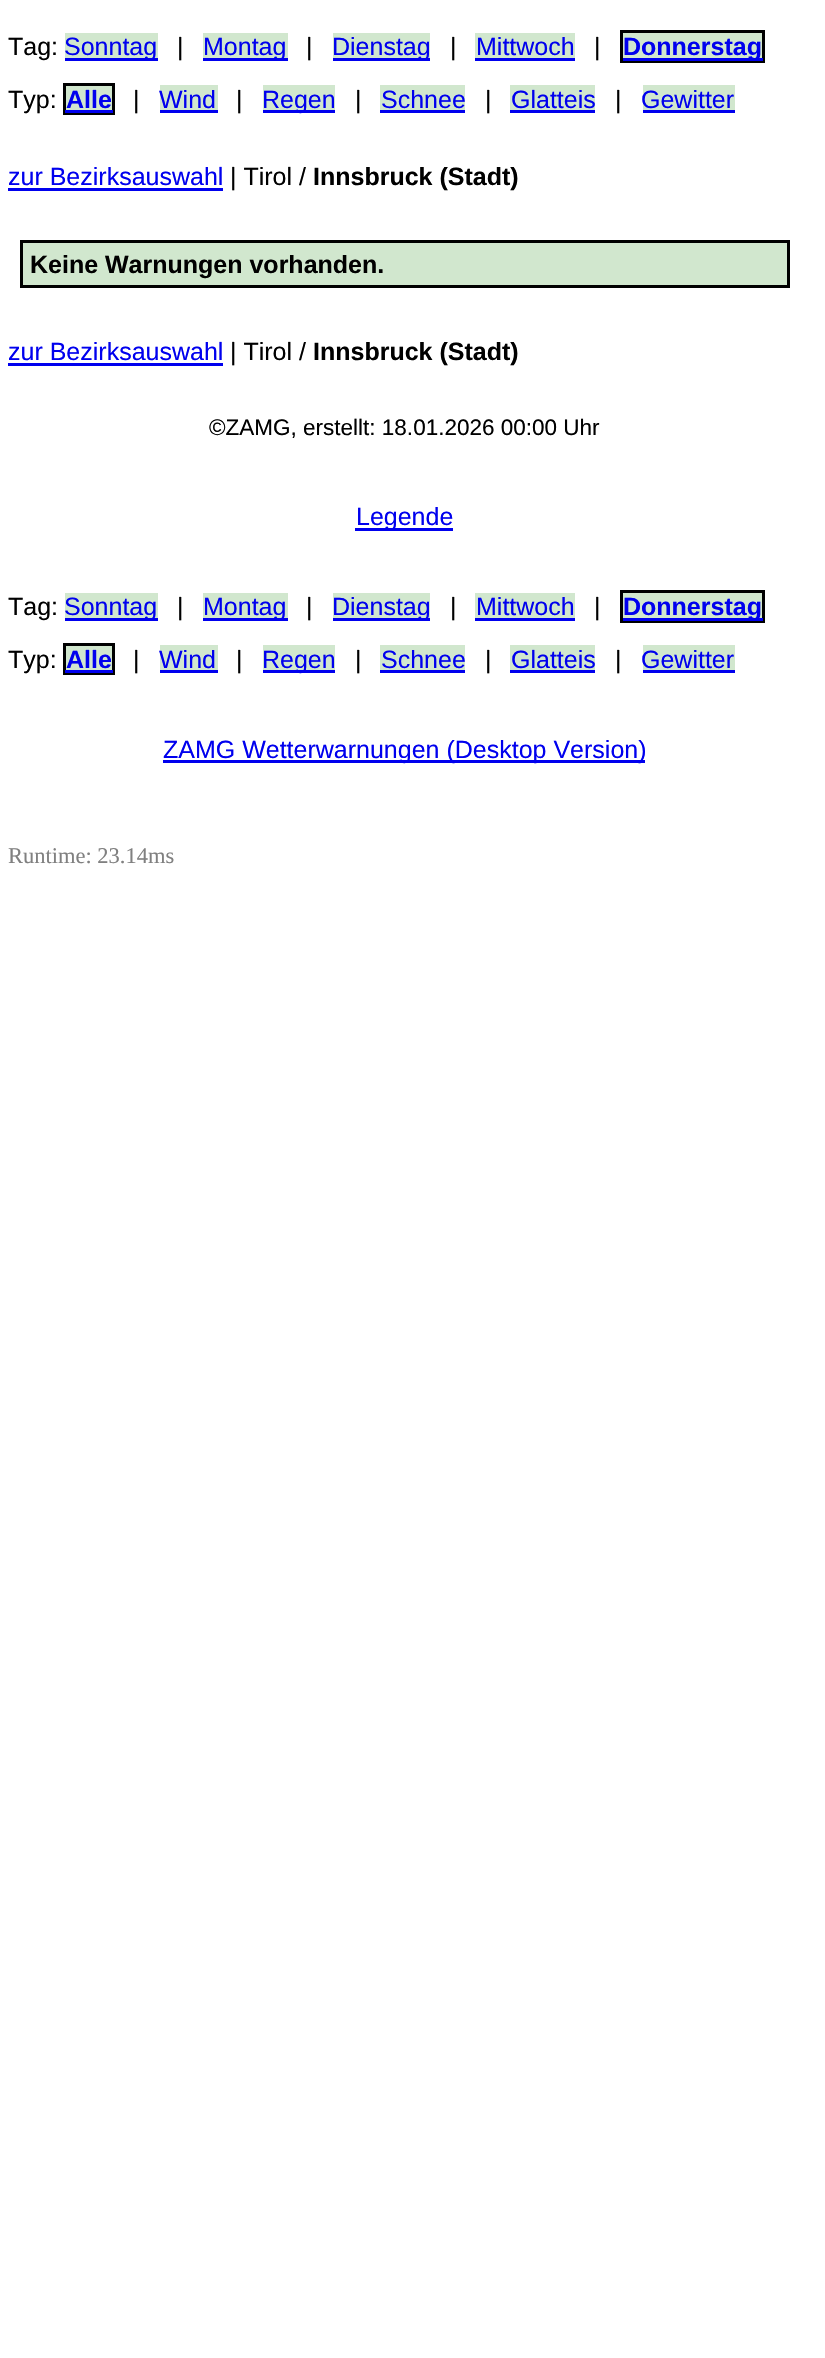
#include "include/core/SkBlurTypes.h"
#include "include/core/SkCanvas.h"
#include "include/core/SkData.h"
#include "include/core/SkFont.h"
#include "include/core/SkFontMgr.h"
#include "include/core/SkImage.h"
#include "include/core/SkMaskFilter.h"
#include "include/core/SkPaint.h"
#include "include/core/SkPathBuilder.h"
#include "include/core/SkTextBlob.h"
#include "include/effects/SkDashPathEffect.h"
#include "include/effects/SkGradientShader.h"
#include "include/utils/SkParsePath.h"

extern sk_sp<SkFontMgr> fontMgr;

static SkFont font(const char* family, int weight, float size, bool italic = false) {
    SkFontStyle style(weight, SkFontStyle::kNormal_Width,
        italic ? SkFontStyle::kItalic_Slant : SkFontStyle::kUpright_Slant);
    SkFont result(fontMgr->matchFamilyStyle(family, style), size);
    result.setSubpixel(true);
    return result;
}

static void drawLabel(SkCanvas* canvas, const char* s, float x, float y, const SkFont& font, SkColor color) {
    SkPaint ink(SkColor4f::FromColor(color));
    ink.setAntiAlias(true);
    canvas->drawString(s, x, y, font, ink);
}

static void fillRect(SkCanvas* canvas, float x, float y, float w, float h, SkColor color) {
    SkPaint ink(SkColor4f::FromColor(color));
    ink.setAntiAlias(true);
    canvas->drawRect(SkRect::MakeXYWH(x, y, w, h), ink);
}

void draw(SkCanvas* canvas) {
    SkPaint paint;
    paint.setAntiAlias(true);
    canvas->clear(0xFFFFFFFF);
    SkFont font1 = font("Liberation Sans", 400, 25);
    drawLabel(canvas, "Tag:", 8, 55, font1, 0xFF000000);
    fillRect(canvas, 65, 33, 93, 25, 0xFFD1E7CE);
    fillRect(canvas, 65, 58, 93, 3, 0xFF0000EE);
    drawLabel(canvas, "Sonntag", 64, 55, font1, 0xFF0000EE);
    drawLabel(canvas, "|", 177, 55, font1, 0xFF000000);
    fillRect(canvas, 203, 33, 85, 25, 0xFFD1E7CE);
    fillRect(canvas, 203, 58, 85, 3, 0xFF0000EE);
    drawLabel(canvas, "Montag", 203, 55, font1, 0xFF0000EE);
    drawLabel(canvas, "|", 306, 55, font1, 0xFF000000);
    fillRect(canvas, 333, 33, 97, 25, 0xFFD1E7CE);
    fillRect(canvas, 333, 58, 97, 3, 0xFF0000EE);
    drawLabel(canvas, "Dienstag", 332, 55, font1, 0xFF0000EE);
    drawLabel(canvas, "|", 450, 55, font1, 0xFF000000);
    fillRect(canvas, 475, 33, 100, 25, 0xFFD1E7CE);
    drawLabel(canvas, "Mittwoch", 476, 55, font1, 0xFF0000EE);
    fillRect(canvas, 475, 58, 100, 3, 0xFF0000EE);
    drawLabel(canvas, "|", 594, 55, font1, 0xFF000000);
    fillRect(canvas, 623, 33, 139, 25, 0xFFD1E7CE);
    paint.setStroke(true);
    paint.setStrokeWidth(3);
    paint.setColor(0xFF000000);
    canvas->drawRect(SkRect::MakeXYWH(621.5f, 31.5f, 142, 30), paint);
    fillRect(canvas, 623, 58, 140, 3, 0xFF0000EE);
    SkFont font2 = font("Liberation Sans", 700, 25);
    drawLabel(canvas, "Donnerstag", 623, 55, font2, 0xFF0000EE);
    drawLabel(canvas, "Typ:", 8, 108, font1, 0xFF000000);
    fillRect(canvas, 66, 86, 46, 24, 0xFFD1E7CE);
    canvas->drawRect(SkRect::MakeXYWH(64.5f, 84.5f, 49, 29), paint);
    drawLabel(canvas, "Alle", 66, 108, font2, 0xFF0000EE);
    fillRect(canvas, 65, 110, 48, 3, 0xFF0000EE);
    drawLabel(canvas, "|", 133, 108, font1, 0xFF000000);
    fillRect(canvas, 160, 85, 58, 25, 0xFFD1E7CE);
    drawLabel(canvas, "Wind", 159, 108, font1, 0xFF0000EE);
    fillRect(canvas, 160, 110, 58, 3, 0xFF0000EE);
    drawLabel(canvas, "|", 236, 108, font1, 0xFF000000);
    fillRect(canvas, 263, 85, 72, 25, 0xFFD1E7CE);
    fillRect(canvas, 263, 110, 72, 3, 0xFF0000EE);
    drawLabel(canvas, "Regen", 262, 108, font1, 0xFF0000EE);
    drawLabel(canvas, "|", 355, 108, font1, 0xFF000000);
    fillRect(canvas, 380, 85, 85, 25, 0xFFD1E7CE);
    drawLabel(canvas, "Schnee", 381, 108, font1, 0xFF0000EE);
    fillRect(canvas, 380, 110, 85, 3, 0xFF0000EE);
    drawLabel(canvas, "|", 485, 108, font1, 0xFF000000);
    fillRect(canvas, 510, 85, 85, 25, 0xFFD1E7CE);
    drawLabel(canvas, "Glatteis", 511, 108, font1, 0xFF0000EE);
    fillRect(canvas, 510, 110, 85, 3, 0xFF0000EE);
    drawLabel(canvas, "|", 615, 108, font1, 0xFF000000);
    fillRect(canvas, 643, 85, 92, 25, 0xFFD1E7CE);
    drawLabel(canvas, "Gewitter", 641, 108, font1, 0xFF0000EE);
    fillRect(canvas, 643, 110, 92, 3, 0xFF0000EE);
    drawLabel(canvas, "zur Bezirksauswahl", 8, 185, font1, 0xFF0000EE);
    fillRect(canvas, 8, 188, 215, 3, 0xFF0000EE);
    drawLabel(canvas, "| Tirol /", 230, 185, font1, 0xFF000000);
    drawLabel(canvas, "Innsbruck (Stadt)", 313, 185, font2, 0xFF000000);
    paint.setStroke(false);
    paint.setColor(0xFFD1E7CE);
    canvas->drawRect(SkRect::MakeXYWH(21.5f, 241.5f, 767, 45), paint);
    paint.setStroke(true);
    paint.setColor(0xFF000000);
    canvas->drawRect(SkRect::MakeXYWH(21.5f, 241.5f, 767, 45), paint);
    drawLabel(canvas, "Keine Warnungen vorhanden.", 30, 273, font2, 0xFF000000);
    drawLabel(canvas, "zur Bezirksauswahl", 8, 360, font1, 0xFF0000EE);
    fillRect(canvas, 8, 363, 215, 3, 0xFF0000EE);
    drawLabel(canvas, "| Tirol /", 230, 360, font1, 0xFF000000);
    drawLabel(canvas, "Innsbruck (Stadt)", 313, 360, font2, 0xFF000000);
    SkFont font3 = font("Liberation Sans", 400, 22.5f);
    drawLabel(canvas, "©ZAMG, erstellt: 18.01.2026 00:00 Uhr", 209, 435, font3, 0xFF000000);
    fillRect(canvas, 355, 528, 98, 3, 0xFF0000EE);
    drawLabel(canvas, "Legende", 356, 525, font1, 0xFF0000EE);
    drawLabel(canvas, "Tag:", 8, 615, font1, 0xFF000000);
    fillRect(canvas, 65, 593, 93, 25, 0xFFD1E7CE);
    fillRect(canvas, 65, 618, 93, 3, 0xFF0000EE);
    drawLabel(canvas, "Sonntag", 64, 615, font1, 0xFF0000EE);
    drawLabel(canvas, "|", 177, 615, font1, 0xFF000000);
    fillRect(canvas, 203, 593, 85, 25, 0xFFD1E7CE);
    fillRect(canvas, 203, 618, 85, 3, 0xFF0000EE);
    drawLabel(canvas, "Montag", 203, 615, font1, 0xFF0000EE);
    drawLabel(canvas, "|", 306, 615, font1, 0xFF000000);
    fillRect(canvas, 333, 593, 97, 25, 0xFFD1E7CE);
    fillRect(canvas, 333, 618, 97, 3, 0xFF0000EE);
    drawLabel(canvas, "Dienstag", 332, 615, font1, 0xFF0000EE);
    drawLabel(canvas, "|", 450, 615, font1, 0xFF000000);
    fillRect(canvas, 475, 593, 100, 25, 0xFFD1E7CE);
    drawLabel(canvas, "Mittwoch", 476, 615, font1, 0xFF0000EE);
    fillRect(canvas, 475, 618, 100, 3, 0xFF0000EE);
    drawLabel(canvas, "|", 594, 615, font1, 0xFF000000);
    fillRect(canvas, 623, 593, 139, 25, 0xFFD1E7CE);
    canvas->drawRect(SkRect::MakeXYWH(621.5f, 591.5f, 142, 30), paint);
    fillRect(canvas, 623, 618, 140, 3, 0xFF0000EE);
    drawLabel(canvas, "Donnerstag", 623, 615, font2, 0xFF0000EE);
    drawLabel(canvas, "Typ:", 8, 668, font1, 0xFF000000);
    fillRect(canvas, 66, 646, 46, 24, 0xFFD1E7CE);
    canvas->drawRect(SkRect::MakeXYWH(64.5f, 644.5f, 49, 29), paint);
    drawLabel(canvas, "Alle", 66, 668, font2, 0xFF0000EE);
    fillRect(canvas, 65, 670, 48, 3, 0xFF0000EE);
    drawLabel(canvas, "|", 133, 668, font1, 0xFF000000);
    fillRect(canvas, 160, 645, 58, 25, 0xFFD1E7CE);
    drawLabel(canvas, "Wind", 159, 668, font1, 0xFF0000EE);
    fillRect(canvas, 160, 670, 58, 3, 0xFF0000EE);
    drawLabel(canvas, "|", 236, 668, font1, 0xFF000000);
    fillRect(canvas, 263, 645, 72, 25, 0xFFD1E7CE);
    fillRect(canvas, 263, 670, 72, 3, 0xFF0000EE);
    drawLabel(canvas, "Regen", 262, 668, font1, 0xFF0000EE);
    drawLabel(canvas, "|", 355, 668, font1, 0xFF000000);
    fillRect(canvas, 380, 645, 85, 25, 0xFFD1E7CE);
    drawLabel(canvas, "Schnee", 381, 668, font1, 0xFF0000EE);
    fillRect(canvas, 380, 670, 85, 3, 0xFF0000EE);
    drawLabel(canvas, "|", 485, 668, font1, 0xFF000000);
    fillRect(canvas, 510, 645, 85, 25, 0xFFD1E7CE);
    drawLabel(canvas, "Glatteis", 511, 668, font1, 0xFF0000EE);
    fillRect(canvas, 510, 670, 85, 3, 0xFF0000EE);
    drawLabel(canvas, "|", 615, 668, font1, 0xFF000000);
    fillRect(canvas, 643, 645, 92, 25, 0xFFD1E7CE);
    drawLabel(canvas, "Gewitter", 641, 668, font1, 0xFF0000EE);
    fillRect(canvas, 643, 670, 92, 3, 0xFF0000EE);
    fillRect(canvas, 163, 760, 482, 3, 0xFF0000EE);
    drawLabel(canvas, "ZAMG Wetterwarnungen (Desktop Version)", 163, 758, font1, 0xFF0000EE);
    SkFont font4 = font("Liberation Serif", 400, 22.5f);
    drawLabel(canvas, "Runtime: 23.14ms", 8, 863, font4, 0xFF808080);
}
